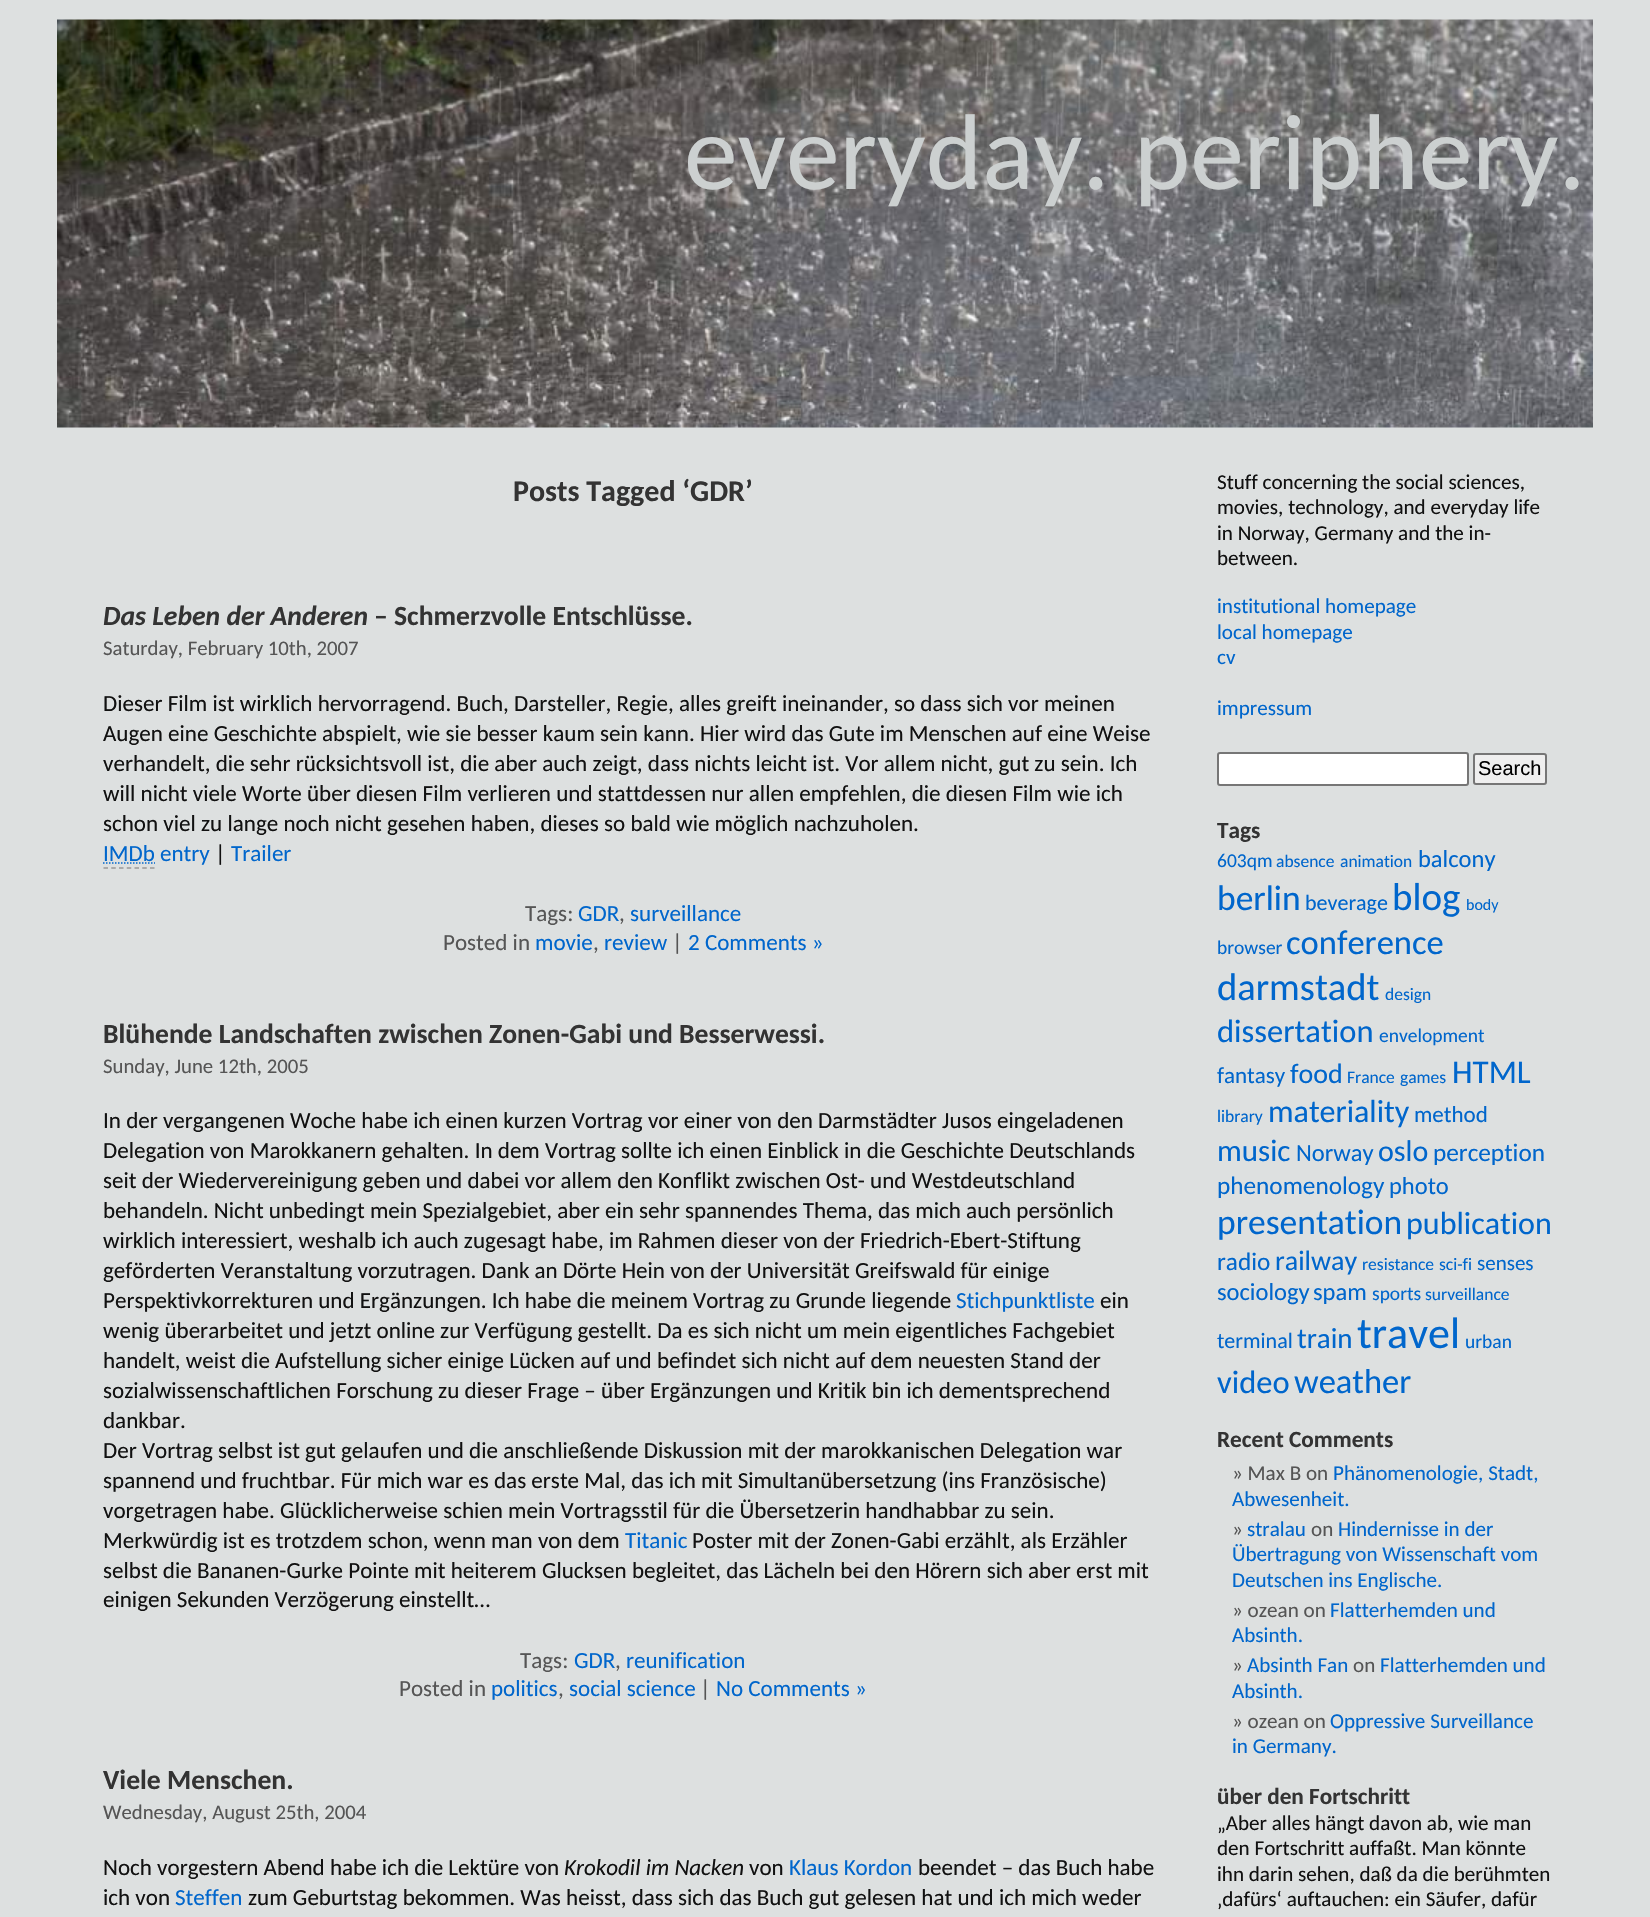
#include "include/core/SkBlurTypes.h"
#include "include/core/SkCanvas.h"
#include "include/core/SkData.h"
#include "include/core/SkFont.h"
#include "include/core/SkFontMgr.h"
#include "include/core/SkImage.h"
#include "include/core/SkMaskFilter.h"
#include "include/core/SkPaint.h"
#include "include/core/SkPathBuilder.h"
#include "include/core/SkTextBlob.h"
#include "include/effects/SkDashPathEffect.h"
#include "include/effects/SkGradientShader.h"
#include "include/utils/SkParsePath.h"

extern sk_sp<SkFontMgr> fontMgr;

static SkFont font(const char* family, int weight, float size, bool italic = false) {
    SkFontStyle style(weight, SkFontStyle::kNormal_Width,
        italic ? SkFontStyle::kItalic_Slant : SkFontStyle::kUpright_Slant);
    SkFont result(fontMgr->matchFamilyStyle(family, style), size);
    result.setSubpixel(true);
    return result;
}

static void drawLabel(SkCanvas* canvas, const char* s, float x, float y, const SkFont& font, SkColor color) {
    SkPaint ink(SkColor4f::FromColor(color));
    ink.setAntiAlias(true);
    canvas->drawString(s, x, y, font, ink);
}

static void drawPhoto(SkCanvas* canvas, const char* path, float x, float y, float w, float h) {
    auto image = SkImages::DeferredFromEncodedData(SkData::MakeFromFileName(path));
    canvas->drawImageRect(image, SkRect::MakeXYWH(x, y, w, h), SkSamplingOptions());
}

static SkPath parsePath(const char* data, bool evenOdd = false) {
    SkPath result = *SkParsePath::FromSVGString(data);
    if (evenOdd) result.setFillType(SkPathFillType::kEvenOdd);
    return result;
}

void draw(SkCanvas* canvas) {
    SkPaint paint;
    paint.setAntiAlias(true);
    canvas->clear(0xFFDDE0E0);
    drawPhoto(canvas, "assets/img1.png", 57, 19, 1536, 409);
    SkFont font1 = font("Carlito", 400, 107.5f);
    drawLabel(canvas, "everyday. periphery.", 684, 189, font1, 0xFFCCD0D0);
    SkFont font2 = font("Carlito", 700, 30);
    drawLabel(canvas, "Posts Tagged ‘GDR’", 513, 501, font2, 0xFF333333);
    SkFont font3 = font("Carlito", 700, 27.65f, true);
    drawLabel(canvas, "Das Leben der Anderen", 103, 625, font3, 0xFF333333);
    SkFont font4 = font("Carlito", 700, 27.65f);
    drawLabel(canvas, "– Schmerzvolle Entschlüsse.", 374, 625, font4, 0xFF333333);
    SkFont font5 = font("Carlito", 400, 20.75f);
    drawLabel(canvas, "Saturday, February 10th, 2007", 103, 655, font5, 0xFF555555);
    SkFont font6 = font("Carlito", 400, 23.05f);
    drawLabel(canvas, "Dieser Film ist wirklich hervorragend. Buch, Darsteller, Regie, alles greift ineinander, so dass sich vor meinen", 103, 711, font6, 0xFF111111);
    drawLabel(canvas, "Augen eine Geschichte abspielt, wie sie besser kaum sein kann. Hier wird das Gute im Menschen auf eine Weise", 103, 741, font6, 0xFF111111);
    drawLabel(canvas, "verhandelt, die sehr rücksichtsvoll ist, die aber auch zeigt, dass nichts leicht ist. Vor allem nicht, gut zu sein. Ich", 103, 771, font6, 0xFF111111);
    drawLabel(canvas, "will nicht viele Worte über diesen Film verlieren und stattdessen nur allen empfehlen, die diesen Film wie ich", 103, 801, font6, 0xFF111111);
    drawLabel(canvas, "schon viel zu lange noch nicht gesehen haben, dieses so bald wie möglich nachzuholen.", 103, 831, font6, 0xFF111111);
    paint.setStroke(true);
    paint.setStrokeWidth(1.5f);
    paint.setColor(0xFF0066CC);
    paint.setPathEffect(SkDashPathEffect::Make({{1.5f, 1.5f}}, 0));
    canvas->drawPath(parsePath("M103 863H155"), paint);
    paint.setPathEffect(nullptr);
    drawLabel(canvas, "IMDb entry", 103, 861, font6, 0xFF0066CC);
    paint.setColor(0xFF999999);
    paint.setPathEffect(SkDashPathEffect::Make({{4.5f, 3.25f}}, 0));
    canvas->drawPath(parsePath("M103.5 868H154.5"), paint);
    paint.setPathEffect(nullptr);
    drawLabel(canvas, "|", 215, 861, font6, 0xFF111111);
    drawLabel(canvas, "Trailer", 231, 861, font6, 0xFF0066CC);
    drawLabel(canvas, "Tags:", 525, 921, font6, 0xFF555555);
    drawLabel(canvas, "GDR", 578, 921, font6, 0xFF0066CC);
    drawLabel(canvas, ",", 619, 921, font6, 0xFF555555);
    drawLabel(canvas, "surveillance", 630, 921, font6, 0xFF0066CC);
    drawLabel(canvas, "Posted in", 443, 950, font6, 0xFF555555);
    drawLabel(canvas, "movie", 535, 950, font6, 0xFF0066CC);
    drawLabel(canvas, ",", 593, 950, font6, 0xFF555555);
    drawLabel(canvas, "review", 604, 950, font6, 0xFF0066CC);
    drawLabel(canvas, "|", 672, 950, font6, 0xFF555555);
    drawLabel(canvas, "2 Comments »", 688, 950, font6, 0xFF0066CC);
    drawLabel(canvas, "Blühende Landschaften zwischen Zonen-Gabi und Besserwessi.", 103, 1043, font4, 0xFF333333);
    drawLabel(canvas, "Sunday, June 12th, 2005", 103, 1073, font5, 0xFF555555);
    drawLabel(canvas, "In der vergangenen Woche habe ich einen kurzen Vortrag vor einer von den Darmstädter Jusos eingeladenen", 103, 1128, font6, 0xFF111111);
    drawLabel(canvas, "Delegation von Marokkanern gehalten. In dem Vortrag sollte ich einen Einblick in die Geschichte Deutschlands", 103, 1158, font6, 0xFF111111);
    drawLabel(canvas, "seit der Wiedervereinigung geben und dabei vor allem den Konflikt zwischen Ost- und Westdeutschland", 103, 1188, font6, 0xFF111111);
    drawLabel(canvas, "behandeln. Nicht unbedingt mein Spezialgebiet, aber ein sehr spannendes Thema, das mich auch persönlich", 103, 1218, font6, 0xFF111111);
    drawLabel(canvas, "wirklich interessiert, weshalb ich auch zugesagt habe, im Rahmen dieser von der Friedrich-Ebert-Stiftung", 103, 1248, font6, 0xFF111111);
    drawLabel(canvas, "geförderten Veranstaltung vorzutragen. Dank an Dörte Hein von der Universität Greifswald für einige", 103, 1278, font6, 0xFF111111);
    drawLabel(canvas, "Perspektivkorrekturen und Ergänzungen. Ich habe die meinem Vortrag zu Grunde liegende", 103, 1308, font6, 0xFF111111);
    drawLabel(canvas, "Stichpunktliste", 956, 1308, font6, 0xFF0066CC);
    drawLabel(canvas, "ein", 1100, 1308, font6, 0xFF111111);
    drawLabel(canvas, "wenig überarbeitet und jetzt online zur Verfügung gestellt. Da es sich nicht um mein eigentliches Fachgebiet", 103, 1338, font6, 0xFF111111);
    drawLabel(canvas, "handelt, weist die Aufstellung sicher einige Lücken auf und befindet sich nicht auf dem neuesten Stand der", 103, 1368, font6, 0xFF111111);
    drawLabel(canvas, "sozialwissenschaftlichen Forschung zu dieser Frage – über Ergänzungen und Kritik bin ich dementsprechend", 103, 1398, font6, 0xFF111111);
    drawLabel(canvas, "dankbar.", 103, 1428, font6, 0xFF111111);
    drawLabel(canvas, "Der Vortrag selbst ist gut gelaufen und die anschließende Diskussion mit der marokkanischen Delegation war", 103, 1458, font6, 0xFF111111);
    drawLabel(canvas, "spannend und fruchtbar. Für mich war es das erste Mal, das ich mit Simultanübersetzung (ins Französische)", 103, 1488, font6, 0xFF111111);
    drawLabel(canvas, "vorgetragen habe. Glücklicherweise schien mein Vortragsstil für die Übersetzerin handhabbar zu sein.", 103, 1518, font6, 0xFF111111);
    drawLabel(canvas, "Merkwürdig ist es trotzdem schon, wenn man von dem", 103, 1548, font6, 0xFF111111);
    drawLabel(canvas, "Titanic", 625, 1548, font6, 0xFF0066CC);
    drawLabel(canvas, "Poster mit der Zonen-Gabi erzählt, als Erzähler", 692, 1548, font6, 0xFF111111);
    drawLabel(canvas, "selbst die Bananen-Gurke Pointe mit heiterem Glucksen begleitet, das Lächeln bei den Hörern sich aber erst mit", 103, 1578, font6, 0xFF111111);
    drawLabel(canvas, "einigen Sekunden Verzögerung einstellt…", 103, 1607, font6, 0xFF111111);
    drawLabel(canvas, "Tags:", 520, 1668, font6, 0xFF555555);
    drawLabel(canvas, "GDR", 574, 1668, font6, 0xFF0066CC);
    drawLabel(canvas, ",", 615, 1668, font6, 0xFF555555);
    drawLabel(canvas, "reunification", 626, 1668, font6, 0xFF0066CC);
    drawLabel(canvas, "Posted in", 399, 1696, font6, 0xFF555555);
    drawLabel(canvas, "politics", 491, 1696, font6, 0xFF0066CC);
    drawLabel(canvas, ",", 558, 1696, font6, 0xFF555555);
    drawLabel(canvas, "social science", 569, 1696, font6, 0xFF0066CC);
    drawLabel(canvas, "|", 700, 1696, font6, 0xFF555555);
    drawLabel(canvas, "No Comments »", 716, 1696, font6, 0xFF0066CC);
    drawLabel(canvas, "Viele Menschen.", 103, 1789, font4, 0xFF333333);
    drawLabel(canvas, "Wednesday, August 25th, 2004", 103, 1819, font5, 0xFF555555);
    drawLabel(canvas, "Noch vorgestern Abend habe ich die Lektüre von", 103, 1875, font6, 0xFF111111);
    SkFont font7 = font("Carlito", 400, 23.05f, true);
    drawLabel(canvas, "Krokodil im Nacken", 564, 1875, font7, 0xFF111111);
    drawLabel(canvas, "von", 749, 1875, font6, 0xFF111111);
    drawLabel(canvas, "Klaus Kordon", 789, 1875, font6, 0xFF0066CC);
    drawLabel(canvas, "beendet – das Buch habe", 918, 1875, font6, 0xFF111111);
    drawLabel(canvas, "ich von", 103, 1905, font6, 0xFF111111);
    drawLabel(canvas, "Steffen", 175, 1905, font6, 0xFF0066CC);
    drawLabel(canvas, "zum Geburtstag bekommen. Was heisst, dass sich das Buch gut gelesen hat und ich mich weder", 248, 1905, font6, 0xFF111111);
    SkFont font8 = font("Carlito", 400, 21.1f);
    drawLabel(canvas, "Stuff concerning the social sciences,", 1217, 489, font8, 0xFF111111);
    drawLabel(canvas, "movies, technology, and everyday life", 1217, 514, font8, 0xFF111111);
    drawLabel(canvas, "in Norway, Germany and the in-", 1217, 540, font8, 0xFF111111);
    drawLabel(canvas, "between.", 1217, 565, font8, 0xFF111111);
    drawLabel(canvas, "institutional homepage", 1217, 613, font8, 0xFF0066CC);
    drawLabel(canvas, "local homepage", 1217, 639, font8, 0xFF0066CC);
    drawLabel(canvas, "cv", 1217, 664, font8, 0xFF0066CC);
    drawLabel(canvas, "impressum", 1217, 715, font8, 0xFF0066CC);
    paint.setStroke(false);
    paint.setColor(0xFFFFFFFF);
    canvas->drawRoundRect(SkRect::MakeXYWH(1218, 753, 250, 32), 2, 2, paint);
    paint.setStroke(true);
    paint.setStrokeWidth(2);
    paint.setColor(0xFF767676);
    canvas->drawRoundRect(SkRect::MakeXYWH(1218, 753, 250, 32), 2, 2, paint);
    paint.setStroke(false);
    paint.setColor(0xFFEFEFEF);
    canvas->drawRoundRect(SkRect::MakeXYWH(1474, 754, 72, 30), 2, 2, paint);
    paint.setStroke(true);
    paint.setColor(0xFF767676);
    canvas->drawRoundRect(SkRect::MakeXYWH(1474, 754, 72, 30), 2, 2, paint);
    SkFont font9 = font("Liberation Sans", 400, 20);
    drawLabel(canvas, "Search", 1478, 775, font9, 0xFF000000);
    SkFont font10 = font("Carlito", 700, 23.25f);
    drawLabel(canvas, "Tags", 1217, 838, font10, 0xFF333333);
    SkFont font11 = font("Carlito", 400, 19.5f);
    drawLabel(canvas, "603qm", 1217, 867, font11, 0xFF0066CC);
    SkFont font12 = font("Carlito", 400, 17.5f);
    drawLabel(canvas, "absence", 1276, 867, font12, 0xFF0066CC);
    drawLabel(canvas, "animation", 1340, 867, font12, 0xFF0066CC);
    SkFont font13 = font("Carlito", 400, 24.5f);
    drawLabel(canvas, "balcony", 1418, 867, font13, 0xFF0066CC);
    SkFont font14 = font("Carlito", 400, 35.5f);
    drawLabel(canvas, "berlin", 1217, 910, font14, 0xFF0066CC);
    SkFont font15 = font("Carlito", 400, 22);
    drawLabel(canvas, "beverage", 1305, 910, font15, 0xFF0066CC);
    SkFont font16 = font("Carlito", 400, 39);
    drawLabel(canvas, "blog", 1392, 910, font16, 0xFF0066CC);
    SkFont font17 = font("Carlito", 400, 16);
    drawLabel(canvas, "body", 1466, 910, font17, 0xFF0066CC);
    drawLabel(canvas, "browser", 1217, 954, font11, 0xFF0066CC);
    SkFont font18 = font("Carlito", 400, 34.5f);
    drawLabel(canvas, "conference", 1286, 954, font18, 0xFF0066CC);
    SkFont font19 = font("Carlito", 400, 38.5f);
    drawLabel(canvas, "darmstadt", 1217, 1000, font19, 0xFF0066CC);
    drawLabel(canvas, "design", 1385, 1000, font12, 0xFF0066CC);
    SkFont font20 = font("Carlito", 400, 32.5f);
    drawLabel(canvas, "dissertation", 1217, 1042, font20, 0xFF0066CC);
    drawLabel(canvas, "envelopment", 1379, 1042, font11, 0xFF0066CC);
    SkFont font21 = font("Carlito", 400, 23);
    drawLabel(canvas, "fantasy", 1217, 1083, font21, 0xFF0066CC);
    SkFont font22 = font("Carlito", 400, 28);
    drawLabel(canvas, "food", 1290, 1083, font22, 0xFF0066CC);
    drawLabel(canvas, "France", 1347, 1083, font12, 0xFF0066CC);
    drawLabel(canvas, "games", 1400, 1083, font12, 0xFF0066CC);
    SkFont font23 = font("Carlito", 400, 33);
    drawLabel(canvas, "HTML", 1452, 1083, font23, 0xFF0066CC);
    drawLabel(canvas, "library", 1217, 1122, font12, 0xFF0066CC);
    SkFont font24 = font("Carlito", 400, 32);
    drawLabel(canvas, "materiality", 1268, 1122, font24, 0xFF0066CC);
    drawLabel(canvas, "method", 1414, 1122, font21, 0xFF0066CC);
    SkFont font25 = font("Carlito", 400, 31);
    drawLabel(canvas, "music", 1217, 1161, font25, 0xFF0066CC);
    drawLabel(canvas, "Norway", 1296, 1161, font13, 0xFF0066CC);
    SkFont font26 = font("Carlito", 400, 30);
    drawLabel(canvas, "oslo", 1378, 1161, font26, 0xFF0066CC);
    SkFont font27 = font("Carlito", 400, 25.25f);
    drawLabel(canvas, "perception", 1433, 1161, font27, 0xFF0066CC);
    drawLabel(canvas, "phenomenology", 1217, 1194, font27, 0xFF0066CC);
    drawLabel(canvas, "photo", 1389, 1194, font13, 0xFF0066CC);
    drawLabel(canvas, "presentation", 1217, 1234, font14, 0xFF0066CC);
    drawLabel(canvas, "publication", 1406, 1234, font24, 0xFF0066CC);
    drawLabel(canvas, "radio", 1217, 1270, font27, 0xFF0066CC);
    drawLabel(canvas, "railway", 1275, 1270, font22, 0xFF0066CC);
    drawLabel(canvas, "resistance", 1362, 1270, font12, 0xFF0066CC);
    drawLabel(canvas, "sci-fi", 1439, 1270, font12, 0xFF0066CC);
    SkFont font28 = font("Carlito", 400, 21);
    drawLabel(canvas, "senses", 1477, 1270, font28, 0xFF0066CC);
    drawLabel(canvas, "sociology", 1217, 1300, font13, 0xFF0066CC);
    drawLabel(canvas, "spam", 1313, 1300, font13, 0xFF0066CC);
    drawLabel(canvas, "sports", 1372, 1300, font11, 0xFF0066CC);
    drawLabel(canvas, "surveillance", 1425, 1300, font12, 0xFF0066CC);
    drawLabel(canvas, "terminal", 1217, 1348, font15, 0xFF0066CC);
    SkFont font29 = font("Carlito", 400, 29);
    drawLabel(canvas, "train", 1297, 1348, font29, 0xFF0066CC);
    SkFont font30 = font("Carlito", 400, 44);
    drawLabel(canvas, "travel", 1357, 1348, font30, 0xFF0066CC);
    drawLabel(canvas, "urban", 1465, 1348, font11, 0xFF0066CC);
    drawLabel(canvas, "video", 1217, 1393, font20, 0xFF0066CC);
    drawLabel(canvas, "weather", 1294, 1393, font18, 0xFF0066CC);
    drawLabel(canvas, "Recent Comments", 1217, 1447, font10, 0xFF333333);
    drawLabel(canvas, "» Max B on", 1232, 1480, font8, 0xFF555555);
    drawLabel(canvas, "Phänomenologie, Stadt,", 1333, 1480, font8, 0xFF0066CC);
    drawLabel(canvas, "Abwesenheit.", 1232, 1506, font8, 0xFF0066CC);
    drawLabel(canvas, "»", 1232, 1536, font8, 0xFF555555);
    drawLabel(canvas, "stralau", 1247, 1536, font8, 0xFF0066CC);
    drawLabel(canvas, "on", 1311, 1536, font8, 0xFF555555);
    drawLabel(canvas, "Hindernisse in der", 1338, 1536, font8, 0xFF0066CC);
    drawLabel(canvas, "Übertragung von Wissenschaft vom", 1232, 1561, font8, 0xFF0066CC);
    drawLabel(canvas, "Deutschen ins Englische.", 1232, 1587, font8, 0xFF0066CC);
    drawLabel(canvas, "» ozean on", 1232, 1617, font8, 0xFF555555);
    drawLabel(canvas, "Flatterhemden und", 1330, 1617, font8, 0xFF0066CC);
    drawLabel(canvas, "Absinth.", 1232, 1642, font8, 0xFF0066CC);
    drawLabel(canvas, "»", 1232, 1672, font8, 0xFF555555);
    drawLabel(canvas, "Absinth Fan", 1247, 1672, font8, 0xFF0066CC);
    drawLabel(canvas, "on", 1353, 1672, font8, 0xFF555555);
    drawLabel(canvas, "Flatterhemden und", 1380, 1672, font8, 0xFF0066CC);
    drawLabel(canvas, "Absinth.", 1232, 1698, font8, 0xFF0066CC);
    drawLabel(canvas, "» ozean on", 1232, 1728, font8, 0xFF555555);
    drawLabel(canvas, "Oppressive Surveillance", 1330, 1728, font8, 0xFF0066CC);
    drawLabel(canvas, "in Germany.", 1232, 1753, font8, 0xFF0066CC);
    drawLabel(canvas, "über den Fortschritt", 1217, 1804, font10, 0xFF333333);
    drawLabel(canvas, "„Aber alles hängt davon ab, wie man", 1217, 1830, font8, 0xFF111111);
    drawLabel(canvas, "den Fortschritt auffaßt. Man könnte", 1217, 1855, font8, 0xFF111111);
    drawLabel(canvas, "ihn darin sehen, daß da die berühmten", 1217, 1881, font8, 0xFF111111);
    drawLabel(canvas, "‚dafürs‘ auftauchen: ein Säufer, dafür", 1217, 1906, font8, 0xFF111111);
}
